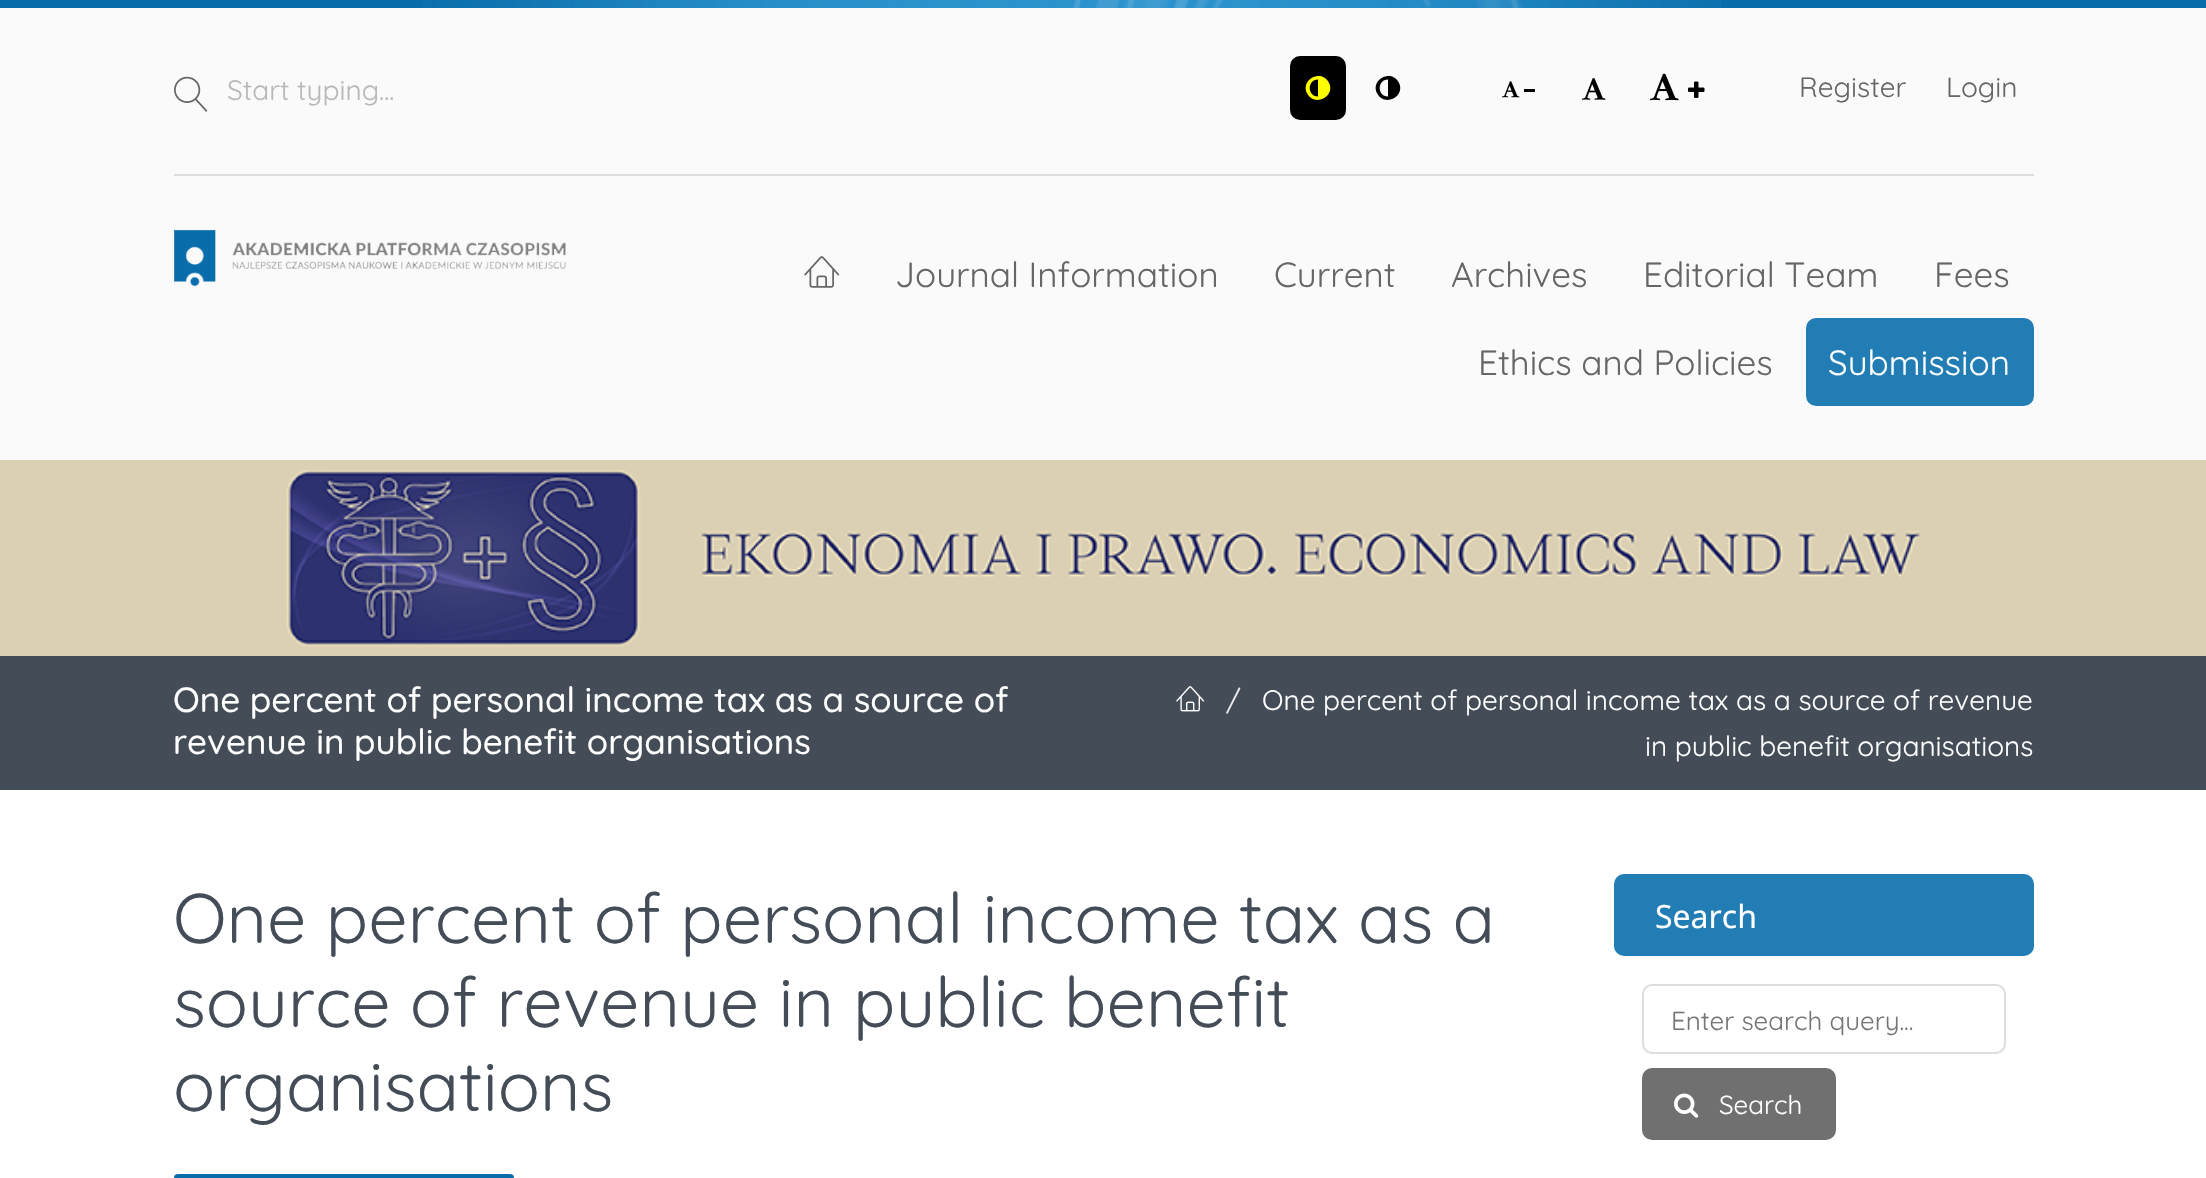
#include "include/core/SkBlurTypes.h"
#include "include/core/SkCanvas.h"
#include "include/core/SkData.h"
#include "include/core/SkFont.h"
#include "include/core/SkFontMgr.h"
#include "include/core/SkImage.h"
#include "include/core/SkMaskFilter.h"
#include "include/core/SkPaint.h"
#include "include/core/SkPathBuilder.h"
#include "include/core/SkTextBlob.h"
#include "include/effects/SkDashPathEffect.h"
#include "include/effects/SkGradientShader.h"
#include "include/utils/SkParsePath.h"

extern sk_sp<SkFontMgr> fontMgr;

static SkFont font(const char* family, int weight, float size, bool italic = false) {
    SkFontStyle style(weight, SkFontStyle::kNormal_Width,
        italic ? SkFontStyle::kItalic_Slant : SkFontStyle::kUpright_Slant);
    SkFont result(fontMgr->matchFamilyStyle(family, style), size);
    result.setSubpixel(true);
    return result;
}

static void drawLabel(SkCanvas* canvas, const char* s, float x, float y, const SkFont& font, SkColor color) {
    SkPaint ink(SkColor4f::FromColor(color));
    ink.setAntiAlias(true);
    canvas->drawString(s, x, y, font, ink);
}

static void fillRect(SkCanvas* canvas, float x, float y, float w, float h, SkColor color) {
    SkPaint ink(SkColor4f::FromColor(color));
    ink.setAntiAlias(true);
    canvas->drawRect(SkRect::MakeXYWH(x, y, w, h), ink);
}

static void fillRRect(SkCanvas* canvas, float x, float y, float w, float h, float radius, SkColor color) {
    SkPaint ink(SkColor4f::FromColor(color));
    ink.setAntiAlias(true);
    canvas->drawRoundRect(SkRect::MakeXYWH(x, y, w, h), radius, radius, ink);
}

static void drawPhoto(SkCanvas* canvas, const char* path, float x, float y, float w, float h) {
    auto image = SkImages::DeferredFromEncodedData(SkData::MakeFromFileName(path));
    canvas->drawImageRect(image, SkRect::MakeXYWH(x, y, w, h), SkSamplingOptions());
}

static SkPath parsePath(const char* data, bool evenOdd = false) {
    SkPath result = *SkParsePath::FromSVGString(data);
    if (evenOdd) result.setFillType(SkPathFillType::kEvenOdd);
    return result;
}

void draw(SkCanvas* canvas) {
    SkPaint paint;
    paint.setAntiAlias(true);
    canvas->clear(0xFFFAFAFA);
    fillRect(canvas, 0, 0, 2206, 8, 0xFF096DAB);
    drawPhoto(canvas, "assets/img1.png", 423, 0, 1298, 8);
    fillRect(canvas, 174, 174, 1860, 2, 0xFFDDDDDD);
    drawPhoto(canvas, "assets/img2.png", 174, 76, 34, 36);
    SkFont font1 = font("Quicksand", 400, 28);
    drawLabel(canvas, "Start typing...", 227, 100, font1, 0xFFB8B8B8);
    fillRRect(canvas, 1290, 56, 56, 64, 10, 0xFF000000);
    paint.setColor(0xFFFFFF00);
    canvas->drawPath(parsePath("M1318 96.5V79.5C1307 79.5 1307 96.5 1318 96.5ZM1328.5 82C1336.5 95.5 1315.5 107.5 1307.5 94C1299.5 80.5 1320.5 68.5 1328.5 82Z"), paint);
    paint.setColor(0xFF000000);
    canvas->drawPath(parsePath("M1388 96.5V79.5C1377 79.5 1377 96.5 1388 96.5ZM1398.5 82C1406.5 95.5 1385.5 107.5 1377.5 94C1369.5 80.5 1390.5 68.5 1398.5 82Z"), paint);
    drawPhoto(canvas, "assets/img3.png", 1502, 81, 18, 17);
    fillRect(canvas, 1524, 89, 11, 3, 0xFF000000);
    drawPhoto(canvas, "assets/img4.png", 1582, 78, 24, 22);
    drawPhoto(canvas, "assets/img5.png", 1650, 73, 29, 28);
    drawPhoto(canvas, "assets/img6.png", 1688, 81, 17, 17);
    drawLabel(canvas, "Register", 1799, 97, font1, 0xFF666666);
    drawLabel(canvas, "Login", 1946, 97, font1, 0xFF666666);
    drawPhoto(canvas, "assets/img7.png", 174, 230, 392, 56);
    drawPhoto(canvas, "assets/img8.png", 804, 256, 36, 32);
    SkFont font2 = font("Quicksand", 400, 35);
    drawLabel(canvas, "Journal Information", 895, 287, font2, 0xFF666666);
    drawLabel(canvas, "Current", 1274, 287, font2, 0xFF666666);
    drawLabel(canvas, "Archives", 1451, 287, font2, 0xFF666666);
    drawLabel(canvas, "Editorial Team", 1643, 287, font2, 0xFF666666);
    drawLabel(canvas, "Fees", 1934, 287, font2, 0xFF666666);
    drawLabel(canvas, "Ethics and Policies", 1478, 375, font2, 0xFF666666);
    paint.setColor(0xFF227DB4);
    canvas->drawRoundRect(SkRect::MakeXYWH(1807, 319, 226, 86), 9, 9, paint);
    paint.setStroke(true);
    paint.setStrokeWidth(2);
    canvas->drawRoundRect(SkRect::MakeXYWH(1807, 319, 226, 86), 9, 9, paint);
    drawLabel(canvas, "Submission", 1828, 375, font2, 0xFFFFFFFF);
    fillRect(canvas, 0, 460, 2206, 196, 0xFFDCD0B4);
    drawPhoto(canvas, "assets/img9.png", 286, 470, 1635, 177);
    fillRect(canvas, 0, 656, 2206, 134, 0xFF434C57);
    SkFont font3 = font("Quicksand", 500, 35);
    drawLabel(canvas, "One percent of personal income tax as a source of", 173, 712, font3, 0xFFFFFFFF);
    drawLabel(canvas, "revenue in public benefit organisations", 173, 754, font3, 0xFFFFFFFF);
    drawPhoto(canvas, "assets/img10.png", 1176, 686, 29, 26);
    drawLabel(canvas, "/", 1226, 710, font1, 0xFFECEDEE);
    drawLabel(canvas, "One percent of personal income tax as a source of revenue", 1262, 710, font1, 0xFFFFFFFF);
    drawLabel(canvas, "in public benefit organisations", 1645, 756, font1, 0xFFFFFFFF);
    fillRect(canvas, 0, 790, 2206, 388, 0xFFFFFFFF);
    SkFont font4 = font("Quicksand", 400, 70);
    drawLabel(canvas, "One percent of personal income tax as a", 173, 943, font4, 0xFF434C57);
    drawLabel(canvas, "source of revenue in public benefit", 173, 1027, font4, 0xFF434C57);
    drawLabel(canvas, "organisations", 173, 1111, font4, 0xFF434C57);
    fillRRect(canvas, 174, 1174, 340, 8, 4, 0xFF096DAB);
    fillRRect(canvas, 1614, 874, 420, 82, 10, 0xFF227DB4);
    SkFont font5 = font("Noto Sans", 400, 32);
    drawLabel(canvas, "Search", 1655, 928, font5, 0xFFFFFFFF);
    paint.setColor(0xFFDDDDDD);
    canvas->drawRoundRect(SkRect::MakeXYWH(1643, 985, 362, 68), 9, 9, paint);
    SkFont font6 = font("Quicksand", 400, 26);
    drawLabel(canvas, "Enter search query...", 1671, 1030, font6, 0xFF757575);
    paint.setStroke(false);
    paint.setColor(0xFF707070);
    canvas->drawRoundRect(SkRect::MakeXYWH(1643, 1069, 192, 70), 9, 9, paint);
    paint.setStroke(true);
    canvas->drawRoundRect(SkRect::MakeXYWH(1643, 1069, 192, 70), 9, 9, paint);
    drawPhoto(canvas, "assets/img11.png", 1674, 1093, 25, 25);
    drawLabel(canvas, "Search", 1719, 1114, font6, 0xFFFFFFFF);
}
